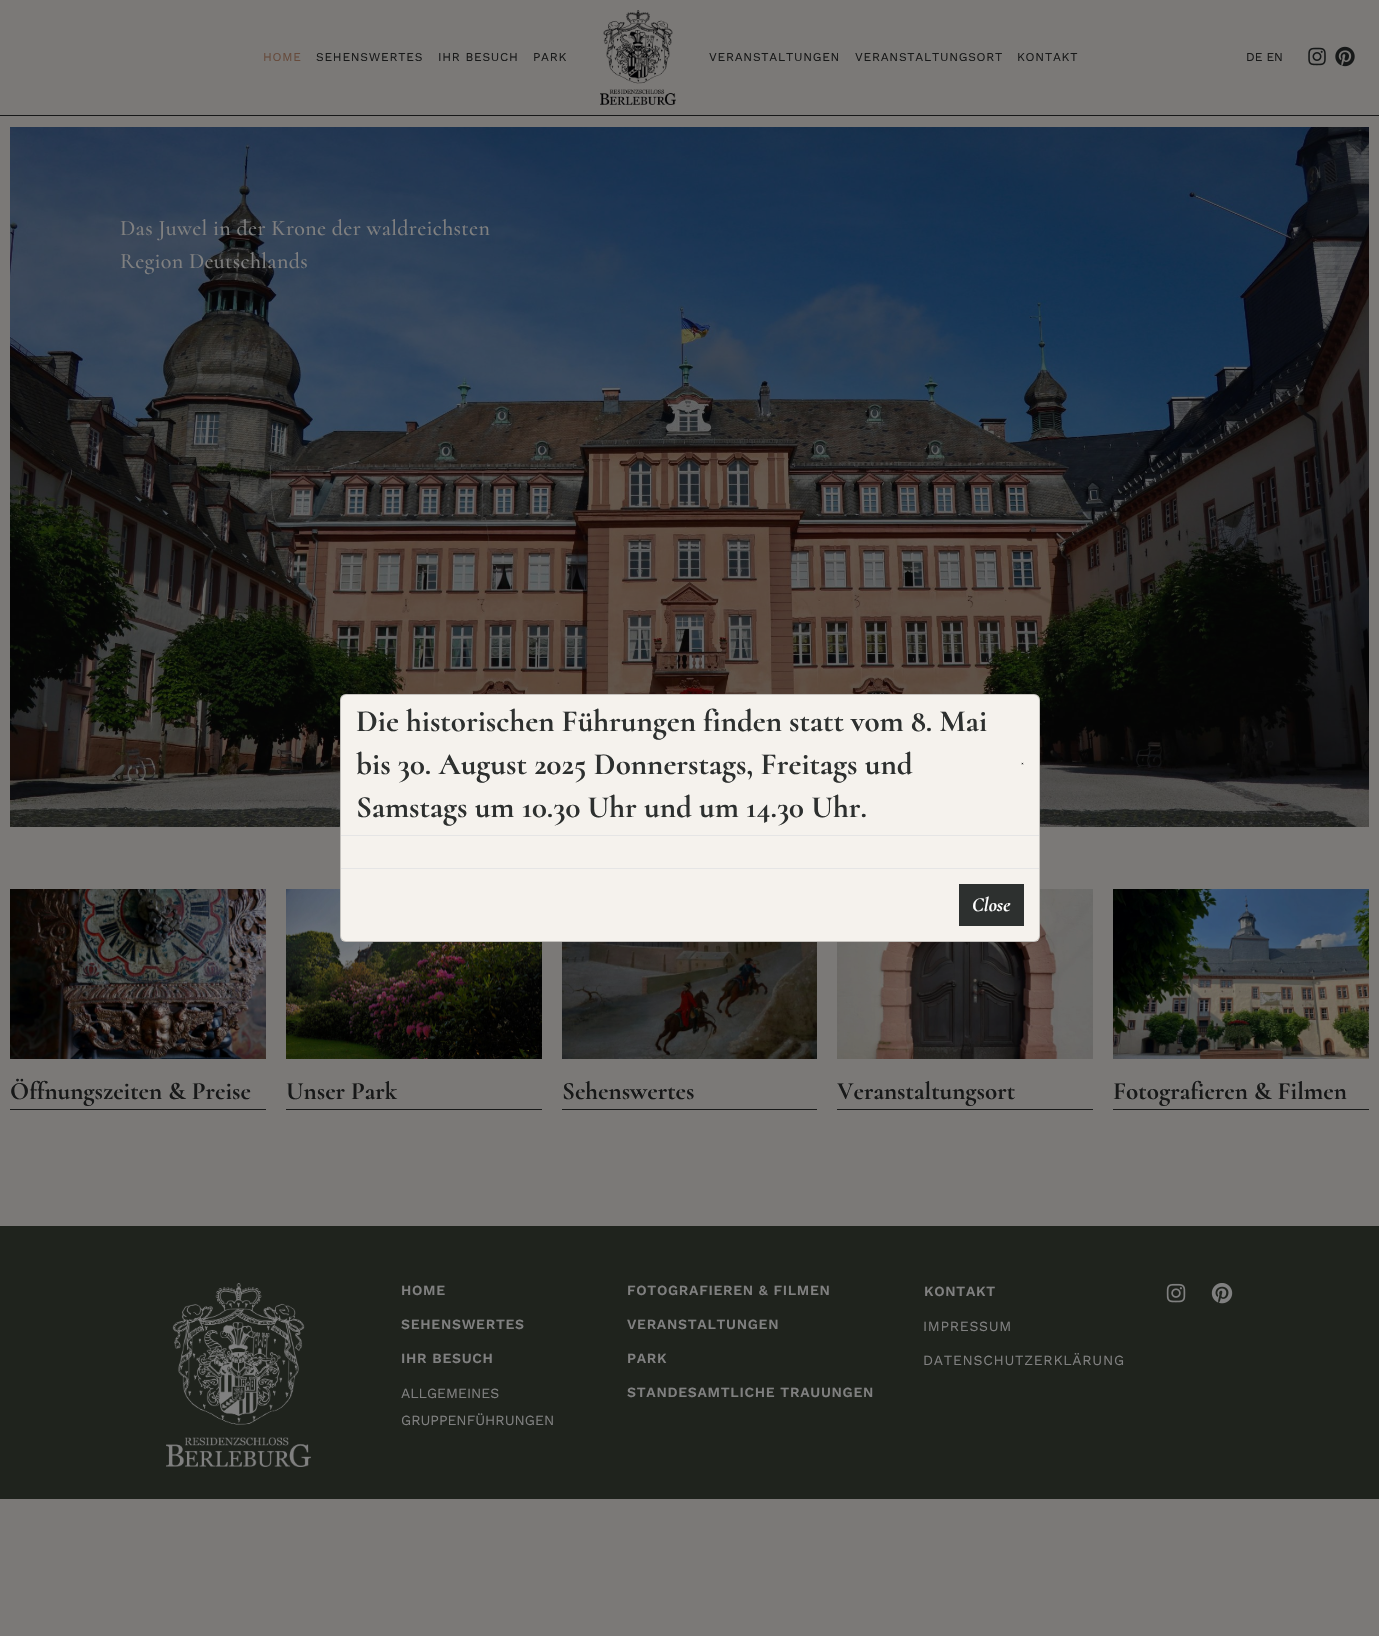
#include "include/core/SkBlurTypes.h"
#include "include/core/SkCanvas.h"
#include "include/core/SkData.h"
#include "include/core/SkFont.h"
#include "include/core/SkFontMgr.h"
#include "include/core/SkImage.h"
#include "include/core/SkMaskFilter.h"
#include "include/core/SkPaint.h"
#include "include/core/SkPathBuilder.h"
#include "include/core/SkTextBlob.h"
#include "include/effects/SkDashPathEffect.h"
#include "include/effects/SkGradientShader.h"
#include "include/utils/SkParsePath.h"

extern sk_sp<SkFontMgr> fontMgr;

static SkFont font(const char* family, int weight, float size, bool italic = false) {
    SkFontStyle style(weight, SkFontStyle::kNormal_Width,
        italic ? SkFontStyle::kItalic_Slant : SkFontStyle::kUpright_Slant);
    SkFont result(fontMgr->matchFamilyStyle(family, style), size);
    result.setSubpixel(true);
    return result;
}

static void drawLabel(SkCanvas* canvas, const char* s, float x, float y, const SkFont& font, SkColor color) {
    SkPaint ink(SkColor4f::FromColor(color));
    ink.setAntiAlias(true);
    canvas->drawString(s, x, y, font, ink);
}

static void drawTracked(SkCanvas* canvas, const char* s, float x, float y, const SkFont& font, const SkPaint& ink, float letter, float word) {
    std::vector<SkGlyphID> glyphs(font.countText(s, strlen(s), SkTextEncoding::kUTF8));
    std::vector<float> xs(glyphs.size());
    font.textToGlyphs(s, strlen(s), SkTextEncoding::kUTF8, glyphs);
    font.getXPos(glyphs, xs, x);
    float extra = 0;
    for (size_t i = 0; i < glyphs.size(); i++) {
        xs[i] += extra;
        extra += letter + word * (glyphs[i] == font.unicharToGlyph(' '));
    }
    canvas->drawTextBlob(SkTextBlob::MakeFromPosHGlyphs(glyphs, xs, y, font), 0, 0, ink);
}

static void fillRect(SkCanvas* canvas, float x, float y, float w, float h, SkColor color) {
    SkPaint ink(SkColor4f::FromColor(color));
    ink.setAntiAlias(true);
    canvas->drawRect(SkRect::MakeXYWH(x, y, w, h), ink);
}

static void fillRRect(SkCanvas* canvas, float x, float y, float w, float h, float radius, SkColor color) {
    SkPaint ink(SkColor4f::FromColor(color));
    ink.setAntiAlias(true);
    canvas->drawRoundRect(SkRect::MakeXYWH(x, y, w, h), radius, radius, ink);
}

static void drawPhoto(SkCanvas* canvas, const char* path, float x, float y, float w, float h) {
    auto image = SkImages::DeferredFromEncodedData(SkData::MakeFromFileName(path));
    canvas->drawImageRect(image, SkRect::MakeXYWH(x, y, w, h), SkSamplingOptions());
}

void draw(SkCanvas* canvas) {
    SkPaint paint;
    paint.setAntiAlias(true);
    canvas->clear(0xFF7B7977);
    fillRect(canvas, 0, 115, 1379, 1, 0xFF171818);
    SkFont font1 = font("Work Sans", 400, 12);
    paint.setColor(0xFF674B3C);
    drawTracked(canvas, "HOME", 263, 61, font1, paint, 0.75f, 0);
    paint.setColor(0xFF171818);
    drawTracked(canvas, "SEHENSWERTES", 316, 61, font1, paint, 0.75f, 0);
    drawTracked(canvas, "IHR BESUCH", 438, 61, font1, paint, 0.75f, 0);
    drawTracked(canvas, "PARK", 533, 61, font1, paint, 0.75f, 0);
    drawPhoto(canvas, "assets/img1.png", 600, 10, 76, 95);
    drawTracked(canvas, "VERANSTALTUNGEN", 709, 61, font1, paint, 0.75f, 0);
    drawTracked(canvas, "VERANSTALTUNGSORT", 855, 61, font1, paint, 0.75f, 0);
    drawTracked(canvas, "KONTAKT", 1017, 61, font1, paint, 0.75f, 0);
    drawLabel(canvas, "DE EN", 1246, 61, font1, 0xFF171818);
    drawPhoto(canvas, "assets/img2.png", 1308, 47, 18, 19);
    drawPhoto(canvas, "assets/img3.png", 1335, 46, 20, 21);
    drawPhoto(canvas, "assets/img4.png", 10, 127, 1359, 700);
    SkFont font2 = font("Cormorant", 500, 22);
    paint.setColor(0xFF808080);
    drawTracked(canvas, "Das Juwel in der Krone der waldreichsten", 120, 235, font2, paint, 0.3f, 0);
    drawTracked(canvas, "Region Deutschlands", 120, 268, font2, paint, 0.3f, 0);
    drawPhoto(canvas, "assets/img6.png", 286, 889, 256, 170);
    drawPhoto(canvas, "assets/img8.png", 837, 889, 256, 170);
    fillRRect(canvas, 340, 694, 700, 248, 6, 0xFFF5F2ED);
    paint.setStroke(true);
    paint.setStrokeWidth(1);
    paint.setColor(0x33000000);
    canvas->drawRoundRect(SkRect::MakeXYWH(340.5f, 694.5f, 699, 247), 5.5f, 5.5f, paint);
    fillRect(canvas, 341, 835, 698, 1, 0xFFE5E5E5);
    SkFont font3 = font("Cormorant", 700, 31);
    paint.setStroke(false);
    paint.setColor(0xFF2D302F);
    drawTracked(canvas, "Die historischen Führungen finden statt vom 8. Mai", 356, 731, font3, paint, 0, -0.25f);
    drawLabel(canvas, "bis 30. August 2025 Donnerstags, Freitags und", 356, 774, font3, 0xFF2D302F);
    drawLabel(canvas, "Samstags um 10.30 Uhr und um 14.30 Uhr.", 356, 817, font3, 0xFF2D302F);
    SkFont font4 = font("Cormorant", 700, 7, true);
    drawLabel(canvas, "×", 1021, 765, font4, 0xFF000000);
    fillRect(canvas, 341, 868, 698, 1, 0xFFE5E5E5);
    fillRect(canvas, 959, 884, 65, 42, 0xFF2D302F);
    SkFont font5 = font("Cormorant", 700, 20, true);
    drawLabel(canvas, "Close", 972, 911, font5, 0xFFFFFFFF);
    drawPhoto(canvas, "assets/img5.png", 10, 889, 256, 170);
    SkFont font6 = font("Cormorant", 700, 25);
    drawLabel(canvas, "Öffnungszeiten & Preise", 10, 1099, font6, 0xFF171818);
    fillRect(canvas, 10, 1109, 256, 1, 0xFF171818);
    drawLabel(canvas, "Unser Park", 286, 1099, font6, 0xFF171818);
    fillRect(canvas, 286, 1109, 256, 1, 0xFF171818);
    drawPhoto(canvas, "assets/img7.png", 562, 942, 255, 117);
    drawLabel(canvas, "Sehenswertes", 562, 1099, font6, 0xFF171818);
    fillRect(canvas, 562, 1109, 255, 1, 0xFF171818);
    drawLabel(canvas, "Veranstaltungsort", 837, 1099, font6, 0xFF171818);
    fillRect(canvas, 837, 1109, 256, 1, 0xFF171818);
    drawPhoto(canvas, "assets/img9.png", 1113, 889, 256, 170);
    drawLabel(canvas, "Fotografieren & Filmen", 1113, 1099, font6, 0xFF171818);
    fillRect(canvas, 1113, 1109, 256, 1, 0xFF171818);
    fillRect(canvas, 0, 1226, 1379, 273, 0xFF1F231D);
    drawPhoto(canvas, "assets/img10.png", 166, 1283, 145, 184);
    SkFont font7 = font("Work Sans", 600, 14);
    paint.setColor(0xFF808080);
    drawTracked(canvas, "HOME", 401, 1295, font7, paint, 0.7f, 0);
    drawTracked(canvas, "SEHENSWERTES", 401, 1329, font7, paint, 0.7f, 0);
    drawTracked(canvas, "IHR BESUCH", 401, 1363, font7, paint, 0.7f, 0);
    SkFont font8 = font("Work Sans", 400, 14);
    drawLabel(canvas, "ALLGEMEINES", 401, 1398, font8, 0xFF808080);
    drawLabel(canvas, "GRUPPENFÜHRUNGEN", 401, 1425, font8, 0xFF808080);
    drawTracked(canvas, "FOTOGRAFIEREN & FILMEN", 627, 1295, font7, paint, 0.7f, 0);
    drawTracked(canvas, "VERANSTALTUNGEN", 627, 1329, font7, paint, 0.7f, 0);
    drawTracked(canvas, "PARK", 627, 1363, font7, paint, 0.7f, 0);
    drawTracked(canvas, "STANDESAMTLICHE TRAUUNGEN", 627, 1397, font7, paint, 0.7f, 0);
    drawTracked(canvas, "KONTAKT", 924, 1296, font7, paint, 0.7f, 0);
    drawTracked(canvas, "IMPRESSUM", 923, 1331, font8, paint, 0.7f, 0);
    drawTracked(canvas, "DATENSCHUTZERKLÄRUNG", 923, 1365, font8, paint, 0.7f, 0);
    drawPhoto(canvas, "assets/img11.png", 1166, 1283, 20, 20);
    drawPhoto(canvas, "assets/img12.png", 1211, 1283, 22, 21);
}
